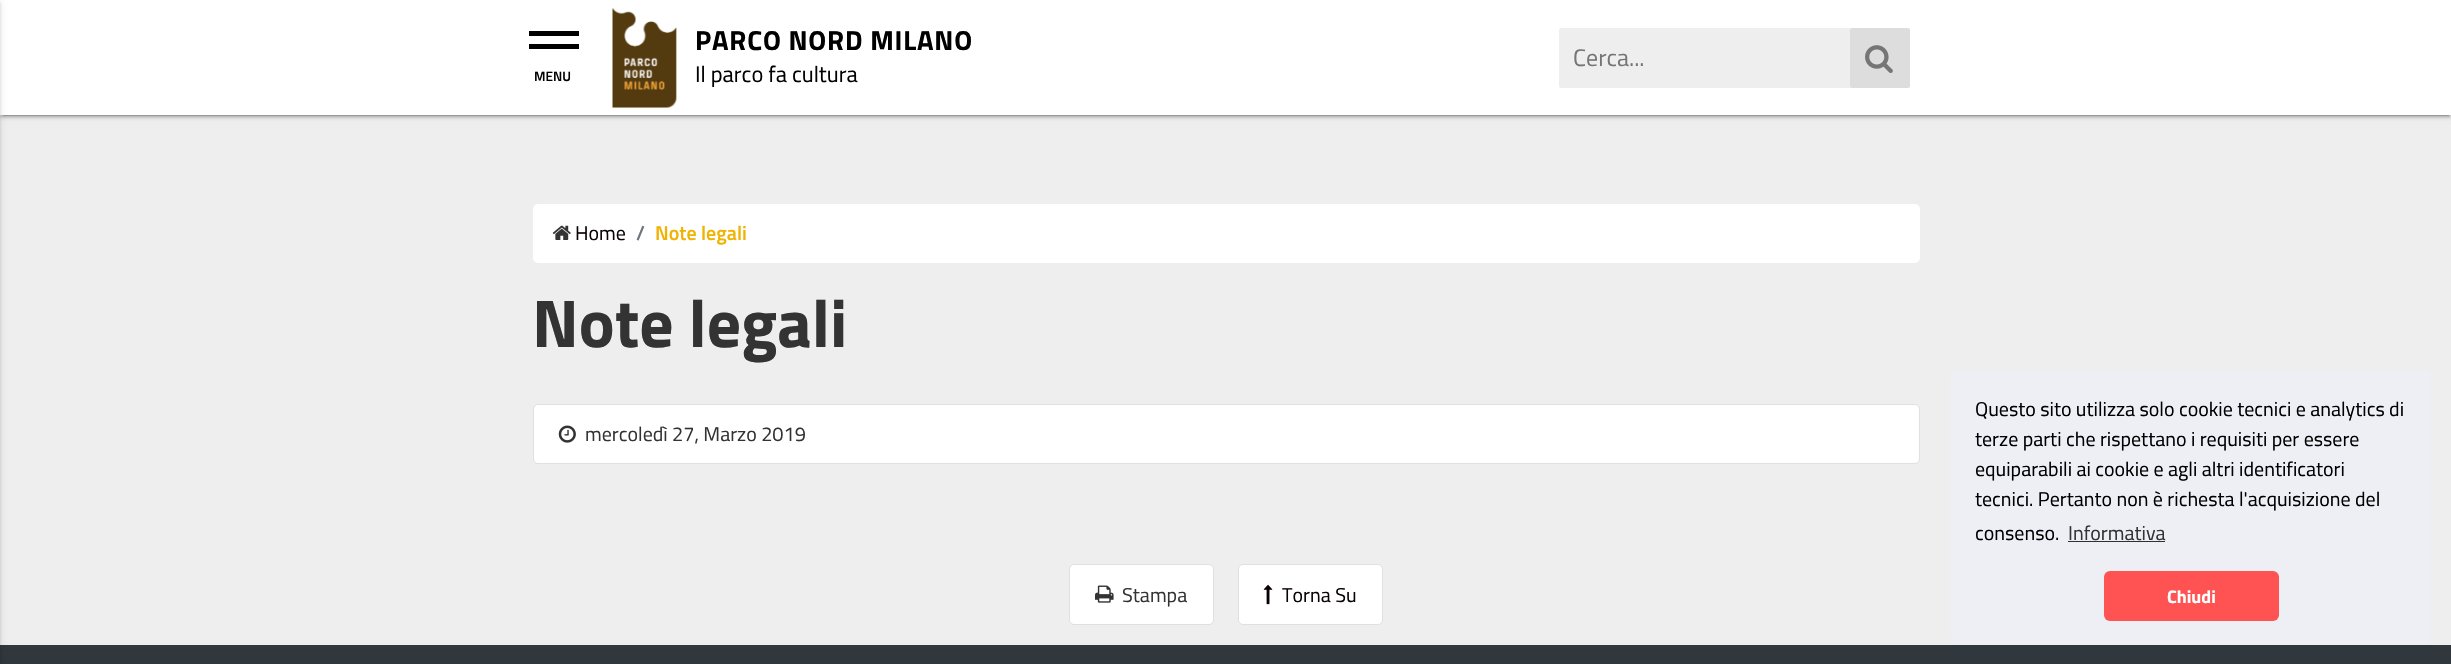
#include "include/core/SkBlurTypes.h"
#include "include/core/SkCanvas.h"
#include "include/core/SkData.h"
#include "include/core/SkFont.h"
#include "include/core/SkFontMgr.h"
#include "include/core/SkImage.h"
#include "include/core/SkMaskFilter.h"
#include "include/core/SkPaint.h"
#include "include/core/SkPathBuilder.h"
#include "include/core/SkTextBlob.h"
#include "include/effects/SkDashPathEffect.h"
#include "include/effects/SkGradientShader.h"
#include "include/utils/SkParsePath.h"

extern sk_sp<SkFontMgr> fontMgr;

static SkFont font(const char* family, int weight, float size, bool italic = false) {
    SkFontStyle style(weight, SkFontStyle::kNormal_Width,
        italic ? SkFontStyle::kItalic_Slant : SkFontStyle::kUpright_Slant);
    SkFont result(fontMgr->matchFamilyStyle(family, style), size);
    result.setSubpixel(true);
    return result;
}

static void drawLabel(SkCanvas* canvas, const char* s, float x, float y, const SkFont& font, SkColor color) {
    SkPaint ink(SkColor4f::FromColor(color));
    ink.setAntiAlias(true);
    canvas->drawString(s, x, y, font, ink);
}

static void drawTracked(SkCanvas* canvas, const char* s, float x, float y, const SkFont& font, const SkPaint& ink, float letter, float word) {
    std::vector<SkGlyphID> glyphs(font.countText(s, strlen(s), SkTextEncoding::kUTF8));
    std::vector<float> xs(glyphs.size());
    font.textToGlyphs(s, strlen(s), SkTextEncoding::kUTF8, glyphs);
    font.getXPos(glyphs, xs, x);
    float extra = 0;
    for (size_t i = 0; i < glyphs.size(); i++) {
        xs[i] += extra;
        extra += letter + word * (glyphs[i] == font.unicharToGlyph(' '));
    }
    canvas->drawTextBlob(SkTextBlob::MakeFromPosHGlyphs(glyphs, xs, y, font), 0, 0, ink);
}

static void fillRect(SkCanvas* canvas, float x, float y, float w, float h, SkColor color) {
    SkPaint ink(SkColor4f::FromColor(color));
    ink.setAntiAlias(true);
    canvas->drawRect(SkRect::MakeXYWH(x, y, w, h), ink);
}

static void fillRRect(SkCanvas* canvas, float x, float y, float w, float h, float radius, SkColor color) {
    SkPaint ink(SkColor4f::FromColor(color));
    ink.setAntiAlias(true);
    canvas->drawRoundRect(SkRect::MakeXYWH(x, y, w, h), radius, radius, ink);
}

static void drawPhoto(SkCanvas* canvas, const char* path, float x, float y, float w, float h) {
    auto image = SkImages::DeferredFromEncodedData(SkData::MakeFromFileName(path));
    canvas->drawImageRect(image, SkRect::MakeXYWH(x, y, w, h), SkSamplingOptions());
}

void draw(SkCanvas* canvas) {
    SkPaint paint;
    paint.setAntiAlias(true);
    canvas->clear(0xFFEEEEEE);
    paint.setColor(0x1F000000);
    paint.setMaskFilter(SkMaskFilter::MakeBlur(kNormal_SkBlurStyle, 3));
    canvas->drawRect(SkRect::MakeXYWH(0, 1, 2451, 115), paint);
    paint.setMaskFilter(nullptr);
    paint.setColor(0x33000000);
    paint.setMaskFilter(SkMaskFilter::MakeBlur(kNormal_SkBlurStyle, 0.5f));
    canvas->drawRect(SkRect::MakeXYWH(3, 6, 2446, 110), paint);
    paint.setMaskFilter(nullptr);
    paint.setColor(0x24000000);
    paint.setMaskFilter(SkMaskFilter::MakeBlur(kNormal_SkBlurStyle, 1));
    canvas->drawRect(SkRect::MakeXYWH(0, 3, 2451, 115), paint);
    paint.setMaskFilter(nullptr);
    fillRect(canvas, 0, 0, 2451, 115, 0xFFFFFFFF);
    fillRect(canvas, 0, 645, 2451, 19, 0xFF30373D);
    paint.setColor(0x1F000000);
    paint.setMaskFilter(SkMaskFilter::MakeBlur(kNormal_SkBlurStyle, 3));
    canvas->drawRect(SkRect::MakeXYWH(-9, 1, 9, 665), paint);
    paint.setMaskFilter(nullptr);
    paint.setColor(0x24000000);
    paint.setMaskFilter(SkMaskFilter::MakeBlur(kNormal_SkBlurStyle, 1));
    canvas->drawRect(SkRect::MakeXYWH(-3, 3, 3, 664), paint);
    paint.setMaskFilter(nullptr);
    drawPhoto(canvas, "assets/img1.png", 612, 8, 65, 100);
    SkFont font1 = font("Titillium Web", 700, 27.5f);
    paint.setColor(0xFF000000);
    drawTracked(canvas, "PARCO NORD MILANO", 695, 50, font1, paint, 0.8f, 0);
    SkFont font2 = font("Titillium Web", 400, 22.5f);
    drawLabel(canvas, "Il parco fa cultura", 695, 82, font2, 0xFF000000);
    fillRRect(canvas, 1559, 28, 351, 60, 2.5f, 0xFFEEEEEE);
    SkFont font3 = font("Titillium Web", 400, 24);
    drawLabel(canvas, "Cerca...", 1573, 66, font3, 0xFF757575);
    fillRRect(canvas, 1850, 28, 60, 60, 2.5f, 0xFFDDDDDD);
    drawPhoto(canvas, "assets/img2.png", 1865, 45, 28, 28);
    fillRect(canvas, 529, 31, 50, 5, 0xFF000000);
    fillRect(canvas, 529, 44, 50, 5, 0xFF000000);
    SkFont font4 = font("Titillium Web", 600, 13.5f);
    drawLabel(canvas, "MENU", 534, 81, font4, 0xFF000000);
    fillRRect(canvas, 533, 204, 1387, 59, 5, 0xFFFFFFFF);
    drawPhoto(canvas, "assets/img3.png", 552, 225, 19, 15);
    SkFont font5 = font("Titillium Web", 400, 20);
    drawLabel(canvas, "Home", 575, 240, font5, 0xFF0A0103);
    SkFont font6 = font("Titillium Web", 600, 20);
    drawLabel(canvas, "/", 636, 240, font6, 0xFF6C757D);
    drawLabel(canvas, "Note legali", 655, 240, font6, 0xFFF0B300);
    SkFont font7 = font("Titillium Web", 700, 67.5f);
    drawLabel(canvas, "Note legali", 532, 347, font7, 0xFF333333);
    fillRRect(canvas, 533, 404, 1387, 60, 5, 0xFFFFFFFF);
    paint.setStroke(true);
    paint.setStrokeWidth(1);
    paint.setColor(0x1F000000);
    canvas->drawRoundRect(SkRect::MakeXYWH(533.5f, 404.5f, 1386, 59), 4.5f, 4.5f, paint);
    drawPhoto(canvas, "assets/img4.png", 558, 425, 18, 18);
    drawLabel(canvas, "mercoledì 27, Marzo 2019", 585, 441, font5, 0xFF333333);
    fillRRect(canvas, 1069, 564, 145, 61, 5, 0xFFFFFFFF);
    canvas->drawRoundRect(SkRect::MakeXYWH(1069.5f, 564.5f, 144, 60), 4.5f, 4.5f, paint);
    drawPhoto(canvas, "assets/img5.png", 1095, 585, 19, 18);
    drawLabel(canvas, "Stampa", 1122, 602, font5, 0xFF333333);
    fillRRect(canvas, 1238, 564, 145, 61, 5, 0xFFFFFFFF);
    canvas->drawRoundRect(SkRect::MakeXYWH(1238.5f, 564.5f, 144, 60), 4.5f, 4.5f, paint);
    drawPhoto(canvas, "assets/img6.png", 1263, 584, 10, 21);
    drawLabel(canvas, "Torna Su", 1282, 602, font5, 0xFF0A0103);
    fillRRect(canvas, 1951, 370, 480, 275, 6, 0xFFEDEFF5);
    drawLabel(canvas, "Questo sito utilizza solo cookie tecnici e analytics di", 1975, 416, font5, 0xFF000000);
    drawLabel(canvas, "terze parti che rispettano i requisiti per essere", 1975, 446, font5, 0xFF000000);
    drawLabel(canvas, "equiparabili ai cookie e agli altri identificatori", 1975, 476, font5, 0xFF000000);
    drawLabel(canvas, "tecnici. Pertanto non è richesta l'acquisizione del", 1975, 506, font5, 0xFF000000);
    drawLabel(canvas, "consenso.", 1975, 540, font5, 0xFF000000);
    drawLabel(canvas, "Informativa", 2068, 540, font5, 0xFF333333);
    fillRect(canvas, 2068, 541, 97, 1, 0xFF2F3031);
    fillRRect(canvas, 2104, 571, 175, 50, 6, 0xFFFF5252);
    SkFont font8 = font("Titillium Web", 700, 18);
    drawLabel(canvas, "Chiudi", 2167, 603, font8, 0xFFFFFFFF);
}
